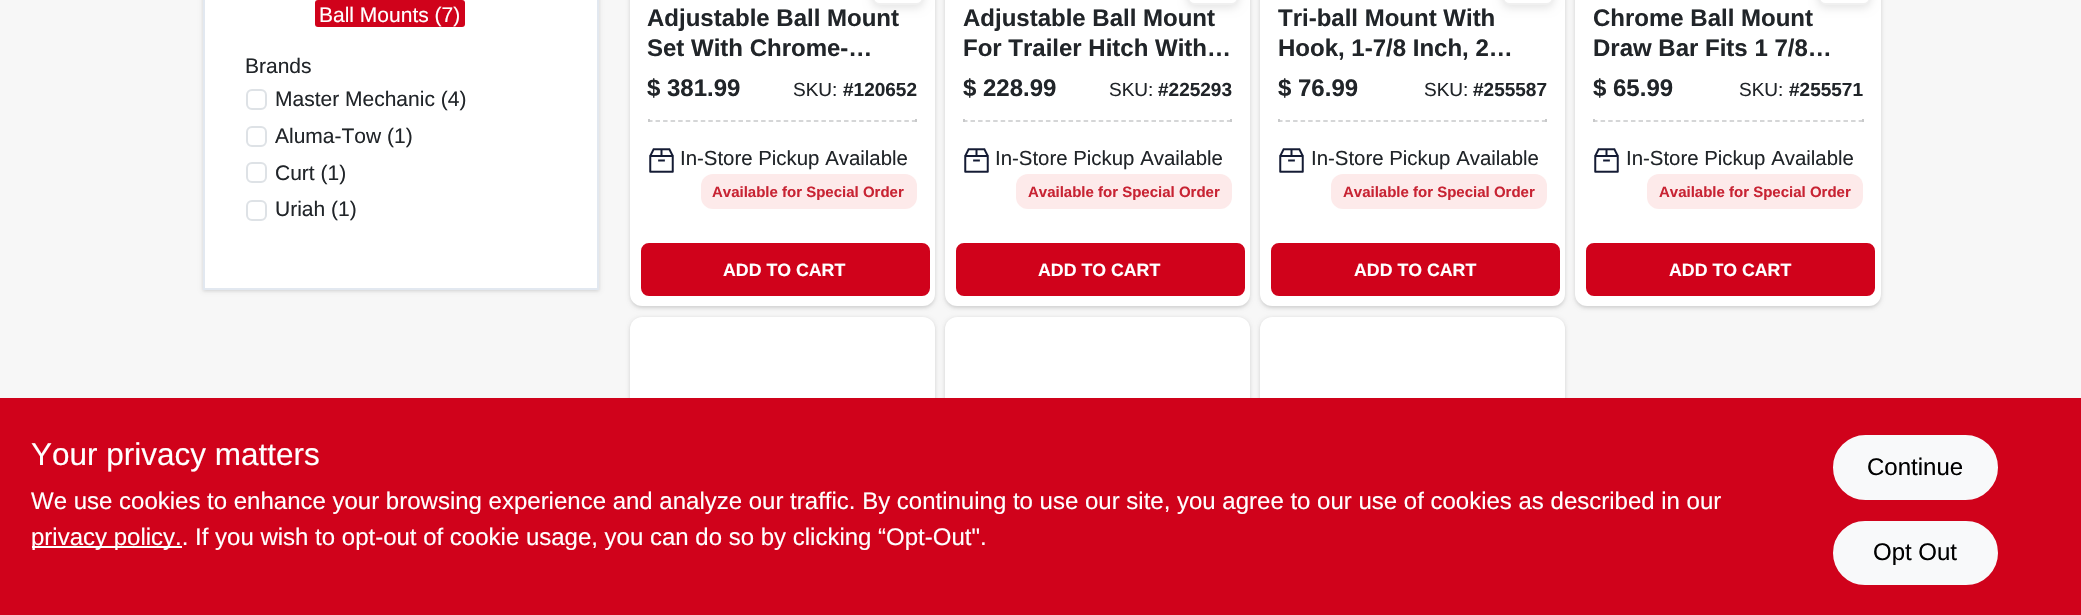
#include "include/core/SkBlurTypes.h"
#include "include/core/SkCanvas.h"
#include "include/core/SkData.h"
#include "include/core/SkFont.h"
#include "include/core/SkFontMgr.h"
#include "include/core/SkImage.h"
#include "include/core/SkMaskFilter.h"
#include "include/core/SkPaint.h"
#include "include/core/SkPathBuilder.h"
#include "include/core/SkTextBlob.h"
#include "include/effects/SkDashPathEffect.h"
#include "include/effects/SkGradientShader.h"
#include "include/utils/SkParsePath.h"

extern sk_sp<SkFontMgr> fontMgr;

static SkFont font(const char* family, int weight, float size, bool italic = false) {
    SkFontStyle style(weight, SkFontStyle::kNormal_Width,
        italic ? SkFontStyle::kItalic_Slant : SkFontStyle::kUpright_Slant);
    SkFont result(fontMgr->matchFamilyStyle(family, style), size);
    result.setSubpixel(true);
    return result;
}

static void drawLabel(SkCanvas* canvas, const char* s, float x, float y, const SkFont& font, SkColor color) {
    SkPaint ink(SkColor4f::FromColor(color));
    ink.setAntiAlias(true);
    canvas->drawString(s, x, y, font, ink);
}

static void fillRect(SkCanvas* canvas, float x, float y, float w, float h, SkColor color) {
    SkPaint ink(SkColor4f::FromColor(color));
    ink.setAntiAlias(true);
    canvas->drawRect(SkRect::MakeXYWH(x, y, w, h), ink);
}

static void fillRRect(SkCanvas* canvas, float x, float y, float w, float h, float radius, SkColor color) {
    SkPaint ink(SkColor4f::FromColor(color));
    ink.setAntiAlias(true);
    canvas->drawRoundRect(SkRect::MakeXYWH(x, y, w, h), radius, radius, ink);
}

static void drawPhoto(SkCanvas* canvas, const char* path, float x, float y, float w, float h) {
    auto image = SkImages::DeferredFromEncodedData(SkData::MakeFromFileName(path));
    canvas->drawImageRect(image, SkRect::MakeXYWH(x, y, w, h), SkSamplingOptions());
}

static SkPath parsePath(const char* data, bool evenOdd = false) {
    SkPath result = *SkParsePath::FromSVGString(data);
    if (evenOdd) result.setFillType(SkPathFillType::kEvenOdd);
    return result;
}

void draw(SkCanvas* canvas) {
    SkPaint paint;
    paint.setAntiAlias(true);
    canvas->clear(0xFFF7F7F7);
    paint.setColor(0x0F000000);
    paint.setMaskFilter(SkMaskFilter::MakeBlur(kNormal_SkBlurStyle, 1.5f));
    canvas->drawRect(SkRect::MakeXYWH(203, -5, 396, 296), paint);
    paint.setMaskFilter(nullptr);
    paint.setColor(0x1A000000);
    paint.setMaskFilter(SkMaskFilter::MakeBlur(kNormal_SkBlurStyle, 2));
    canvas->drawRect(SkRect::MakeXYWH(203, -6, 396, 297), paint);
    paint.setMaskFilter(nullptr);
    paint.setColor(0xFFFFFFFF);
    canvas->drawRect(SkRect::MakeXYWH(204, -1, 394, 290), paint);
    paint.setStroke(true);
    paint.setStrokeWidth(2);
    paint.setColor(0xFFE2E8F0);
    canvas->drawRect(SkRect::MakeXYWH(204, -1, 394, 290), paint);
    fillRRect(canvas, 315, 0, 150, 27, 3, 0xFFD0021B);
    SkFont font1 = font("Liberation Sans", 400, 21);
    drawLabel(canvas, "Ball Mounts (7)", 319, 22, font1, 0xFFFFFFFF);
    drawLabel(canvas, "Brands", 245, 73, font1, 0xFF212529);
    paint.setColor(0xFFDEE2E6);
    canvas->drawRoundRect(SkRect::MakeXYWH(247, 90, 19, 19), 5, 5, paint);
    drawLabel(canvas, "Master Mechanic (4)", 275, 106, font1, 0xFF212529);
    canvas->drawRoundRect(SkRect::MakeXYWH(247, 127, 19, 19), 5, 5, paint);
    drawLabel(canvas, "Aluma-Tow (1)", 275, 143, font1, 0xFF212529);
    canvas->drawRoundRect(SkRect::MakeXYWH(247, 163, 19, 19), 5, 5, paint);
    drawLabel(canvas, "Curt (1)", 275, 180, font1, 0xFF212529);
    canvas->drawRoundRect(SkRect::MakeXYWH(247, 201, 19, 19), 5, 5, paint);
    drawLabel(canvas, "Uriah (1)", 275, 216, font1, 0xFF212529);
    paint.setStroke(false);
    paint.setColor(0x0F000000);
    paint.setMaskFilter(SkMaskFilter::MakeBlur(kNormal_SkBlurStyle, 1.5f));
    canvas->drawRoundRect(SkRect::MakeXYWH(630, -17, 305, 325), 12, 12, paint);
    paint.setMaskFilter(nullptr);
    paint.setColor(0x1A000000);
    paint.setMaskFilter(SkMaskFilter::MakeBlur(kNormal_SkBlurStyle, 2));
    canvas->drawRoundRect(SkRect::MakeXYWH(630, -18, 305, 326), 12, 12, paint);
    paint.setMaskFilter(nullptr);
    fillRRect(canvas, 630, -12, 305, 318, 12, 0xFFFFFFFF);
    paint.setMaskFilter(SkMaskFilter::MakeBlur(kNormal_SkBlurStyle, 4));
    canvas->drawRoundRect(SkRect::MakeXYWH(872, -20, 52, 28), 8, 8, paint);
    paint.setMaskFilter(nullptr);
    paint.setColor(0xFFFFFFFF);
    canvas->drawRoundRect(SkRect::MakeXYWH(873, -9, 50, 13), 7, 7, paint);
    paint.setStroke(true);
    paint.setColor(0xFFF0F0F0);
    canvas->drawRoundRect(SkRect::MakeXYWH(873, -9, 50, 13), 7, 7, paint);
    SkFont font2 = font("Liberation Sans", 700, 24);
    drawLabel(canvas, "Adjustable Ball Mount", 647, 26, font2, 0xFF212529);
    drawLabel(canvas, "Set With Chrome-…", 647, 56, font2, 0xFF212529);
    drawLabel(canvas, "$ 381.99", 647, 96, font2, 0xFF212529);
    SkFont font3 = font("Liberation Sans", 400, 19);
    drawLabel(canvas, "SKU:", 793, 96, font3, 0xFF212529);
    SkFont font4 = font("Liberation Sans", 700, 19);
    drawLabel(canvas, "#120652", 843, 96, font4, 0xFF212529);
    fillRect(canvas, 915, 119, 2, 3, 0xFFC8C9CA);
    paint.setStrokeWidth(1.5f);
    paint.setColor(0xFFC8C9CA);
    paint.setPathEffect(SkDashPathEffect::Make({{4.5f, 3.04f}}, 0));
    canvas->drawPath(parsePath("M648 121H916.5"), paint);
    paint.setPathEffect(nullptr);
    fillRect(canvas, 648, 119, 2, 3, 0xFFC8C9CA);
    drawPhoto(canvas, "assets/img1.png", 649, 148, 25, 25);
    SkFont font5 = font("Liberation Sans", 400, 20.4f);
    drawLabel(canvas, "In-Store Pickup Available", 680, 165, font5, 0xFF212529);
    fillRRect(canvas, 701, 174, 216, 35, 12, 0xFFFDEAEA);
    SkFont font6 = font("Liberation Sans", 700, 15);
    drawLabel(canvas, "Available for Special Order", 712, 197, font6, 0xFFC82333);
    paint.setStroke(false);
    paint.setColor(0xFFD0021B);
    canvas->drawRoundRect(SkRect::MakeXYWH(642, 244, 287, 51), 7, 7, paint);
    paint.setStroke(true);
    paint.setStrokeWidth(2);
    canvas->drawRoundRect(SkRect::MakeXYWH(642, 244, 287, 51), 7, 7, paint);
    SkFont font7 = font("Liberation Sans", 700, 17.75f);
    drawLabel(canvas, "ADD TO CART", 723, 276, font7, 0xFFFFFFFF);
    paint.setStroke(false);
    paint.setColor(0x0F000000);
    paint.setMaskFilter(SkMaskFilter::MakeBlur(kNormal_SkBlurStyle, 1.5f));
    canvas->drawRoundRect(SkRect::MakeXYWH(945, -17, 305, 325), 12, 12, paint);
    paint.setMaskFilter(nullptr);
    paint.setColor(0x1A000000);
    paint.setMaskFilter(SkMaskFilter::MakeBlur(kNormal_SkBlurStyle, 2));
    canvas->drawRoundRect(SkRect::MakeXYWH(945, -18, 305, 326), 12, 12, paint);
    paint.setMaskFilter(nullptr);
    fillRRect(canvas, 945, -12, 305, 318, 12, 0xFFFFFFFF);
    paint.setMaskFilter(SkMaskFilter::MakeBlur(kNormal_SkBlurStyle, 4));
    canvas->drawRoundRect(SkRect::MakeXYWH(1187, -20, 52, 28), 8, 8, paint);
    paint.setMaskFilter(nullptr);
    paint.setColor(0xFFFFFFFF);
    canvas->drawRoundRect(SkRect::MakeXYWH(1188, -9, 50, 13), 7, 7, paint);
    paint.setStroke(true);
    paint.setColor(0xFFF0F0F0);
    canvas->drawRoundRect(SkRect::MakeXYWH(1188, -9, 50, 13), 7, 7, paint);
    drawLabel(canvas, "Adjustable Ball Mount", 963, 26, font2, 0xFF212529);
    drawLabel(canvas, "For Trailer Hitch With…", 963, 56, font2, 0xFF212529);
    drawLabel(canvas, "$ 228.99", 963, 96, font2, 0xFF212529);
    drawLabel(canvas, "SKU:", 1109, 96, font3, 0xFF212529);
    drawLabel(canvas, "#225293", 1158, 96, font4, 0xFF212529);
    fillRect(canvas, 1230, 119, 2, 3, 0xFFC8C9CA);
    paint.setStrokeWidth(1.5f);
    paint.setColor(0xFFC8C9CA);
    paint.setPathEffect(SkDashPathEffect::Make({{4.5f, 3.04f}}, 0));
    canvas->drawPath(parsePath("M963 121H1231.5"), paint);
    paint.setPathEffect(nullptr);
    fillRect(canvas, 963, 119, 2, 3, 0xFFC8C9CA);
    drawPhoto(canvas, "assets/img1.png", 964, 148, 25, 25);
    drawLabel(canvas, "In-Store Pickup Available", 995, 165, font5, 0xFF212529);
    fillRRect(canvas, 1016, 174, 216, 35, 12, 0xFFFDEAEA);
    drawLabel(canvas, "Available for Special Order", 1028, 197, font6, 0xFFC82333);
    paint.setStroke(false);
    paint.setColor(0xFFD0021B);
    canvas->drawRoundRect(SkRect::MakeXYWH(957, 244, 287, 51), 7, 7, paint);
    paint.setStroke(true);
    paint.setStrokeWidth(2);
    canvas->drawRoundRect(SkRect::MakeXYWH(957, 244, 287, 51), 7, 7, paint);
    drawLabel(canvas, "ADD TO CART", 1038, 276, font7, 0xFFFFFFFF);
    paint.setStroke(false);
    paint.setColor(0x0F000000);
    paint.setMaskFilter(SkMaskFilter::MakeBlur(kNormal_SkBlurStyle, 1.5f));
    canvas->drawRoundRect(SkRect::MakeXYWH(1260, -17, 305, 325), 12, 12, paint);
    paint.setMaskFilter(nullptr);
    paint.setColor(0x1A000000);
    paint.setMaskFilter(SkMaskFilter::MakeBlur(kNormal_SkBlurStyle, 2));
    canvas->drawRoundRect(SkRect::MakeXYWH(1260, -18, 305, 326), 12, 12, paint);
    paint.setMaskFilter(nullptr);
    fillRRect(canvas, 1260, -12, 305, 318, 12, 0xFFFFFFFF);
    paint.setMaskFilter(SkMaskFilter::MakeBlur(kNormal_SkBlurStyle, 4));
    canvas->drawRoundRect(SkRect::MakeXYWH(1502, -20, 52, 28), 8, 8, paint);
    paint.setMaskFilter(nullptr);
    paint.setColor(0xFFFFFFFF);
    canvas->drawRoundRect(SkRect::MakeXYWH(1503, -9, 50, 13), 7, 7, paint);
    paint.setStroke(true);
    paint.setColor(0xFFF0F0F0);
    canvas->drawRoundRect(SkRect::MakeXYWH(1503, -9, 50, 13), 7, 7, paint);
    drawLabel(canvas, "Tri-ball Mount With", 1278, 26, font2, 0xFF212529);
    drawLabel(canvas, "Hook, 1-7/8 Inch, 2…", 1278, 56, font2, 0xFF212529);
    drawLabel(canvas, "$ 76.99", 1278, 96, font2, 0xFF212529);
    drawLabel(canvas, "SKU:", 1424, 96, font3, 0xFF212529);
    drawLabel(canvas, "#255587", 1473, 96, font4, 0xFF212529);
    fillRect(canvas, 1545, 119, 2, 3, 0xFFC8C9CA);
    paint.setStrokeWidth(1.5f);
    paint.setColor(0xFFC8C9CA);
    paint.setPathEffect(SkDashPathEffect::Make({{4.5f, 3.04f}}, 0));
    canvas->drawPath(parsePath("M1278 121H1546.5"), paint);
    paint.setPathEffect(nullptr);
    fillRect(canvas, 1278, 119, 2, 3, 0xFFC8C9CA);
    drawPhoto(canvas, "assets/img1.png", 1279, 148, 25, 25);
    drawLabel(canvas, "In-Store Pickup Available", 1311, 165, font5, 0xFF212529);
    fillRRect(canvas, 1331, 174, 216, 35, 12, 0xFFFDEAEA);
    drawLabel(canvas, "Available for Special Order", 1343, 197, font6, 0xFFC82333);
    paint.setStroke(false);
    paint.setColor(0xFFD0021B);
    canvas->drawRoundRect(SkRect::MakeXYWH(1272, 244, 287, 51), 7, 7, paint);
    paint.setStroke(true);
    paint.setStrokeWidth(2);
    canvas->drawRoundRect(SkRect::MakeXYWH(1272, 244, 287, 51), 7, 7, paint);
    drawLabel(canvas, "ADD TO CART", 1354, 276, font7, 0xFFFFFFFF);
    paint.setStroke(false);
    paint.setColor(0x0F000000);
    paint.setMaskFilter(SkMaskFilter::MakeBlur(kNormal_SkBlurStyle, 1.5f));
    canvas->drawRoundRect(SkRect::MakeXYWH(1575, -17, 306, 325), 12, 12, paint);
    paint.setMaskFilter(nullptr);
    paint.setColor(0x1A000000);
    paint.setMaskFilter(SkMaskFilter::MakeBlur(kNormal_SkBlurStyle, 2));
    canvas->drawRoundRect(SkRect::MakeXYWH(1575, -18, 306, 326), 12, 12, paint);
    paint.setMaskFilter(nullptr);
    fillRRect(canvas, 1575, -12, 306, 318, 12, 0xFFFFFFFF);
    paint.setMaskFilter(SkMaskFilter::MakeBlur(kNormal_SkBlurStyle, 4));
    canvas->drawRoundRect(SkRect::MakeXYWH(1818, -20, 53, 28), 8, 8, paint);
    paint.setMaskFilter(nullptr);
    paint.setColor(0xFFFFFFFF);
    canvas->drawRoundRect(SkRect::MakeXYWH(1819, -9, 51, 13), 7, 7, paint);
    paint.setStroke(true);
    paint.setColor(0xFFF0F0F0);
    canvas->drawRoundRect(SkRect::MakeXYWH(1819, -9, 51, 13), 7, 7, paint);
    drawLabel(canvas, "Chrome Ball Mount", 1593, 26, font2, 0xFF212529);
    drawLabel(canvas, "Draw Bar Fits 1 7/8…", 1593, 56, font2, 0xFF212529);
    drawLabel(canvas, "$ 65.99", 1593, 96, font2, 0xFF212529);
    drawLabel(canvas, "SKU:", 1739, 96, font3, 0xFF212529);
    drawLabel(canvas, "#255571", 1789, 96, font4, 0xFF212529);
    fillRect(canvas, 1862, 119, 2, 3, 0xFFC8C9CA);
    paint.setStrokeWidth(1.5f);
    paint.setColor(0xFFC8C9CA);
    paint.setPathEffect(SkDashPathEffect::Make({{4.5f, 3.09f}}, 0));
    canvas->drawPath(parsePath("M1593 121H1863"), paint);
    paint.setPathEffect(nullptr);
    fillRect(canvas, 1593, 119, 2, 3, 0xFFC8C9CA);
    drawPhoto(canvas, "assets/img1.png", 1594, 148, 25, 25);
    drawLabel(canvas, "In-Store Pickup Available", 1626, 165, font5, 0xFF212529);
    fillRRect(canvas, 1647, 174, 216, 35, 12, 0xFFFDEAEA);
    drawLabel(canvas, "Available for Special Order", 1659, 197, font6, 0xFFC82333);
    paint.setStroke(false);
    paint.setColor(0xFFD0021B);
    canvas->drawRoundRect(SkRect::MakeXYWH(1587, 244, 287, 51), 7, 7, paint);
    paint.setStroke(true);
    paint.setStrokeWidth(2);
    canvas->drawRoundRect(SkRect::MakeXYWH(1587, 244, 287, 51), 7, 7, paint);
    drawLabel(canvas, "ADD TO CART", 1669, 276, font7, 0xFFFFFFFF);
    paint.setStroke(false);
    paint.setColor(0x0F000000);
    paint.setMaskFilter(SkMaskFilter::MakeBlur(kNormal_SkBlurStyle, 1.5f));
    canvas->drawRoundRect(SkRect::MakeXYWH(630, 318, 305, 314), 12, 12, paint);
    paint.setMaskFilter(nullptr);
    paint.setColor(0x1A000000);
    paint.setMaskFilter(SkMaskFilter::MakeBlur(kNormal_SkBlurStyle, 2));
    canvas->drawRoundRect(SkRect::MakeXYWH(630, 318, 305, 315), 12, 12, paint);
    paint.setMaskFilter(nullptr);
    fillRRect(canvas, 630, 317, 305, 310, 12, 0xFFFFFFFF);
    paint.setColor(0x0F000000);
    paint.setMaskFilter(SkMaskFilter::MakeBlur(kNormal_SkBlurStyle, 1.5f));
    canvas->drawRoundRect(SkRect::MakeXYWH(945, 318, 305, 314), 12, 12, paint);
    paint.setMaskFilter(nullptr);
    paint.setColor(0x1A000000);
    paint.setMaskFilter(SkMaskFilter::MakeBlur(kNormal_SkBlurStyle, 2));
    canvas->drawRoundRect(SkRect::MakeXYWH(945, 318, 305, 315), 12, 12, paint);
    paint.setMaskFilter(nullptr);
    fillRRect(canvas, 945, 317, 305, 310, 12, 0xFFFFFFFF);
    paint.setColor(0x0F000000);
    paint.setMaskFilter(SkMaskFilter::MakeBlur(kNormal_SkBlurStyle, 1.5f));
    canvas->drawRoundRect(SkRect::MakeXYWH(1260, 318, 305, 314), 12, 12, paint);
    paint.setMaskFilter(nullptr);
    paint.setColor(0x1A000000);
    paint.setMaskFilter(SkMaskFilter::MakeBlur(kNormal_SkBlurStyle, 2));
    canvas->drawRoundRect(SkRect::MakeXYWH(1260, 318, 305, 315), 12, 12, paint);
    paint.setMaskFilter(nullptr);
    fillRRect(canvas, 1260, 317, 305, 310, 12, 0xFFFFFFFF);
    fillRect(canvas, 0, 398, 2081, 217, 0xFFD0021B);
    SkFont font8 = font("Liberation Sans", 400, 31.5f);
    drawLabel(canvas, "Your privacy matters", 31, 465, font8, 0xFFFFFFFF);
    SkFont font9 = font("Liberation Sans", 400, 24);
    drawLabel(canvas, "We use cookies to enhance your browsing experience and analyze our traffic. By continuing to use our site, you agree to our use of cookies as described in our", 31, 509, font9, 0xFFFFFFFF);
    fillRect(canvas, 32, 546, 150, 2, 0xFFFFFFFF);
    drawLabel(canvas, "privacy policy.. If you wish to opt-out of cookie usage, you can do so by clicking “Opt-Out\".", 31, 545, font9, 0xFFFFFFFF);
    paint.setColor(0xFFF8F9FA);
    canvas->drawRoundRect(SkRect::MakeXYWH(1834, 436, 163, 63), 31.5f, 31.5f, paint);
    paint.setStroke(true);
    canvas->drawRoundRect(SkRect::MakeXYWH(1834, 436, 163, 63), 31.5f, 31.5f, paint);
    drawLabel(canvas, "Continue", 1867, 475, font9, 0xFF000000);
    paint.setStroke(false);
    canvas->drawRoundRect(SkRect::MakeXYWH(1834, 522, 163, 62), 31, 31, paint);
    paint.setStroke(true);
    canvas->drawRoundRect(SkRect::MakeXYWH(1834, 522, 163, 62), 31, 31, paint);
    drawLabel(canvas, "Opt Out", 1873, 560, font9, 0xFF000000);
}
